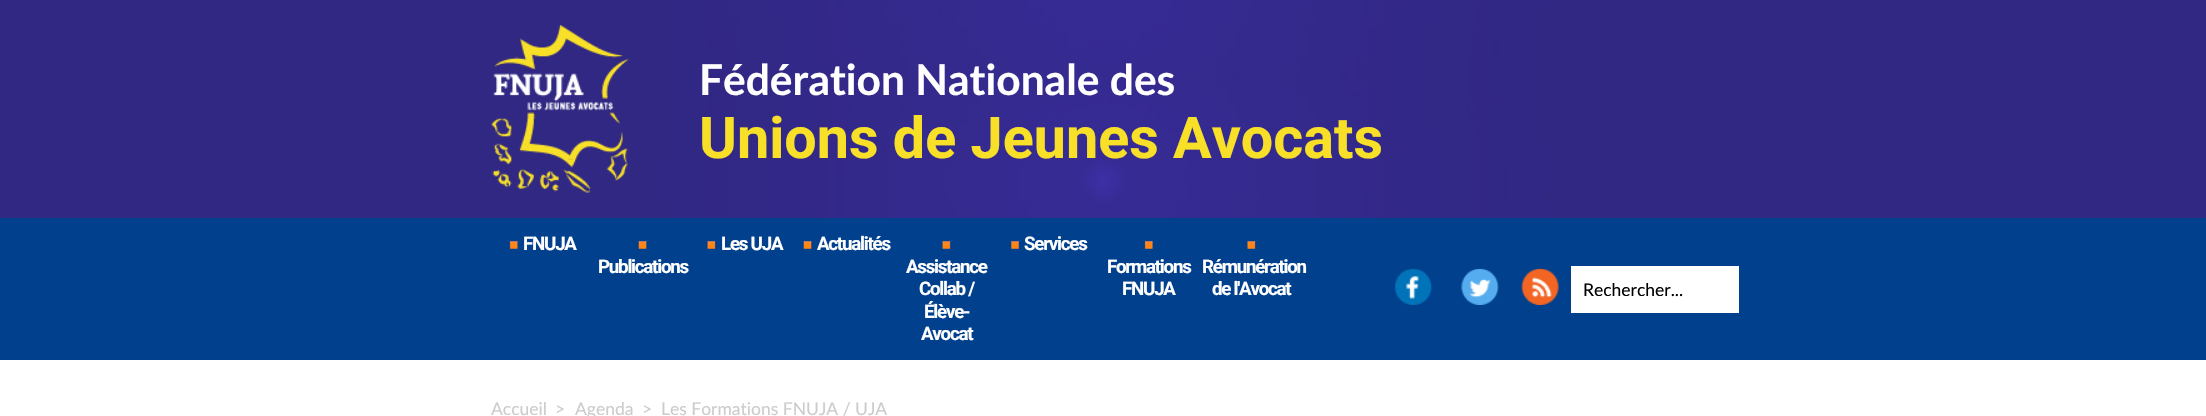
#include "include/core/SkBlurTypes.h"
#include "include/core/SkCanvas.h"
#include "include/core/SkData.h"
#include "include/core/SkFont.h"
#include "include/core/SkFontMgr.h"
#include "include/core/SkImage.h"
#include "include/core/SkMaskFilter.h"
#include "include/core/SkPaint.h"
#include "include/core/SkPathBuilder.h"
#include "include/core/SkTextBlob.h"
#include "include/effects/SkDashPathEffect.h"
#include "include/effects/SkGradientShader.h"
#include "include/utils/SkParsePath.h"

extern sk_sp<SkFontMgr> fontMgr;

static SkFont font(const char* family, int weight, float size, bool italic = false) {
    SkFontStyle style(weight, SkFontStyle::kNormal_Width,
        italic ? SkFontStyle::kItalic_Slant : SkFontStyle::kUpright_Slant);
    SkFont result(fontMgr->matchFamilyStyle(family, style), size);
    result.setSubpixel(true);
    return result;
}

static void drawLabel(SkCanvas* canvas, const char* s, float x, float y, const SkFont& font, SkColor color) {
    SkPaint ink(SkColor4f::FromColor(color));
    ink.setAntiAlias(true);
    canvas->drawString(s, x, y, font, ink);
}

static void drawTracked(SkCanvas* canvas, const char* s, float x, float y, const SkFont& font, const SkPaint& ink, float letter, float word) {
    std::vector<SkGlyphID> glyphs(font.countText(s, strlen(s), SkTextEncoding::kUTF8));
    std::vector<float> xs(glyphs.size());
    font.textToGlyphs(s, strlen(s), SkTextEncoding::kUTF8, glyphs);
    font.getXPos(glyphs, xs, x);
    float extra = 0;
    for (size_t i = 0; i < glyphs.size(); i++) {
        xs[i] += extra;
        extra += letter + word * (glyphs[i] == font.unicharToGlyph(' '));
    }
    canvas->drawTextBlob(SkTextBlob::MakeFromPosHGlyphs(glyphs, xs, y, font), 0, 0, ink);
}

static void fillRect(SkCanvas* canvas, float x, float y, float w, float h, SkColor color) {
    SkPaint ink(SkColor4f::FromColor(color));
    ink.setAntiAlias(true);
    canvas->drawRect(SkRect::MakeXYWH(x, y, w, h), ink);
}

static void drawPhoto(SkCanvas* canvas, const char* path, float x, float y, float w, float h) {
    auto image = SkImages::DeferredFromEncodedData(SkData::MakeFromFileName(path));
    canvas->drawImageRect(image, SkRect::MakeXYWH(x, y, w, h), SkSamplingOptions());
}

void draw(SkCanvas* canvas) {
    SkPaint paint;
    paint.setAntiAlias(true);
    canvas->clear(0xFFFFFFFF);
    drawPhoto(canvas, "assets/img1.png", 0, 0, 2206, 218);
    drawPhoto(canvas, "assets/img2.png", 491, 25, 138, 168);
    SkFont font1 = font("Lato", 700, 42.5f);
    drawLabel(canvas, "Fédération Nationale des", 699, 95, font1, 0xFFFFFFFF);
    SkFont font2 = font("Roboto", 700, 57.5f);
    drawLabel(canvas, "Unions de Jeunes Avocats", 699, 158, font2, 0xFFF8E029);
    fillRect(canvas, 0, 218, 2206, 142, 0xFF01408D);
    drawPhoto(canvas, "assets/img3.png", 509, 241, 9, 8);
    SkFont font3 = font("Roboto", 700, 18.75f);
    paint.setColor(0xFFFFFFFF);
    drawTracked(canvas, "FNUJA", 523, 250, font3, paint, -1.25f, 0);
    drawPhoto(canvas, "assets/img4.png", 707, 241, 9, 8);
    drawTracked(canvas, "Les UJA", 721, 250, font3, paint, -1.25f, 0);
    drawPhoto(canvas, "assets/img5.png", 803, 241, 9, 8);
    drawTracked(canvas, "Actualités", 817, 250, font3, paint, -1.25f, 0);
    drawPhoto(canvas, "assets/img6.png", 1011, 241, 8, 8);
    drawTracked(canvas, "Services", 1024, 250, font3, paint, -1.25f, 0);
    drawPhoto(canvas, "assets/img5.png", 638, 241, 9, 8);
    drawTracked(canvas, "Publications", 598, 273, font3, paint, -1.25f, 0);
    drawPhoto(canvas, "assets/img4.png", 942, 241, 9, 8);
    drawTracked(canvas, "Assistance", 906, 273, font3, paint, -1.25f, 0);
    drawTracked(canvas, "Collab /", 919, 295, font3, paint, -1.25f, 0);
    drawTracked(canvas, "Élève-", 924, 318, font3, paint, -1.25f, 0);
    drawTracked(canvas, "Avocat", 921, 340, font3, paint, -1.25f, 0);
    drawPhoto(canvas, "assets/img7.png", 1144, 241, 9, 8);
    drawTracked(canvas, "Formations", 1107, 273, font3, paint, -1.25f, 0);
    drawTracked(canvas, "FNUJA", 1122, 295, font3, paint, -1.25f, 0);
    drawPhoto(canvas, "assets/img8.png", 1247, 241, 9, 8);
    drawTracked(canvas, "Rémunération", 1202, 273, font3, paint, -1.25f, 0);
    drawTracked(canvas, "de l'Avocat", 1212, 295, font3, paint, -1.25f, 0);
    drawPhoto(canvas, "assets/img9.png", 1395, 269, 37, 36);
    drawPhoto(canvas, "assets/img10.png", 1461, 268, 38, 37);
    drawPhoto(canvas, "assets/img11.png", 1521, 268, 38, 37);
    fillRect(canvas, 1571, 266, 168, 47, 0xFFFFFFFF);
    SkFont font4 = font("Lato", 400, 17.5f);
    drawLabel(canvas, "Rechercher...", 1583, 296, font4, 0xFF000000);
    drawLabel(canvas, "Accueil", 491, 415, font4, 0xFFCCCCCC);
    drawLabel(canvas, ">", 555, 415, font4, 0xFFCCCCCC);
    drawLabel(canvas, "Agenda", 575, 415, font4, 0xFFCCCCCC);
    drawLabel(canvas, ">", 642, 415, font4, 0xFFCCCCCC);
    drawLabel(canvas, "Les Formations FNUJA / UJA", 661, 415, font4, 0xFFCCCCCC);
}
